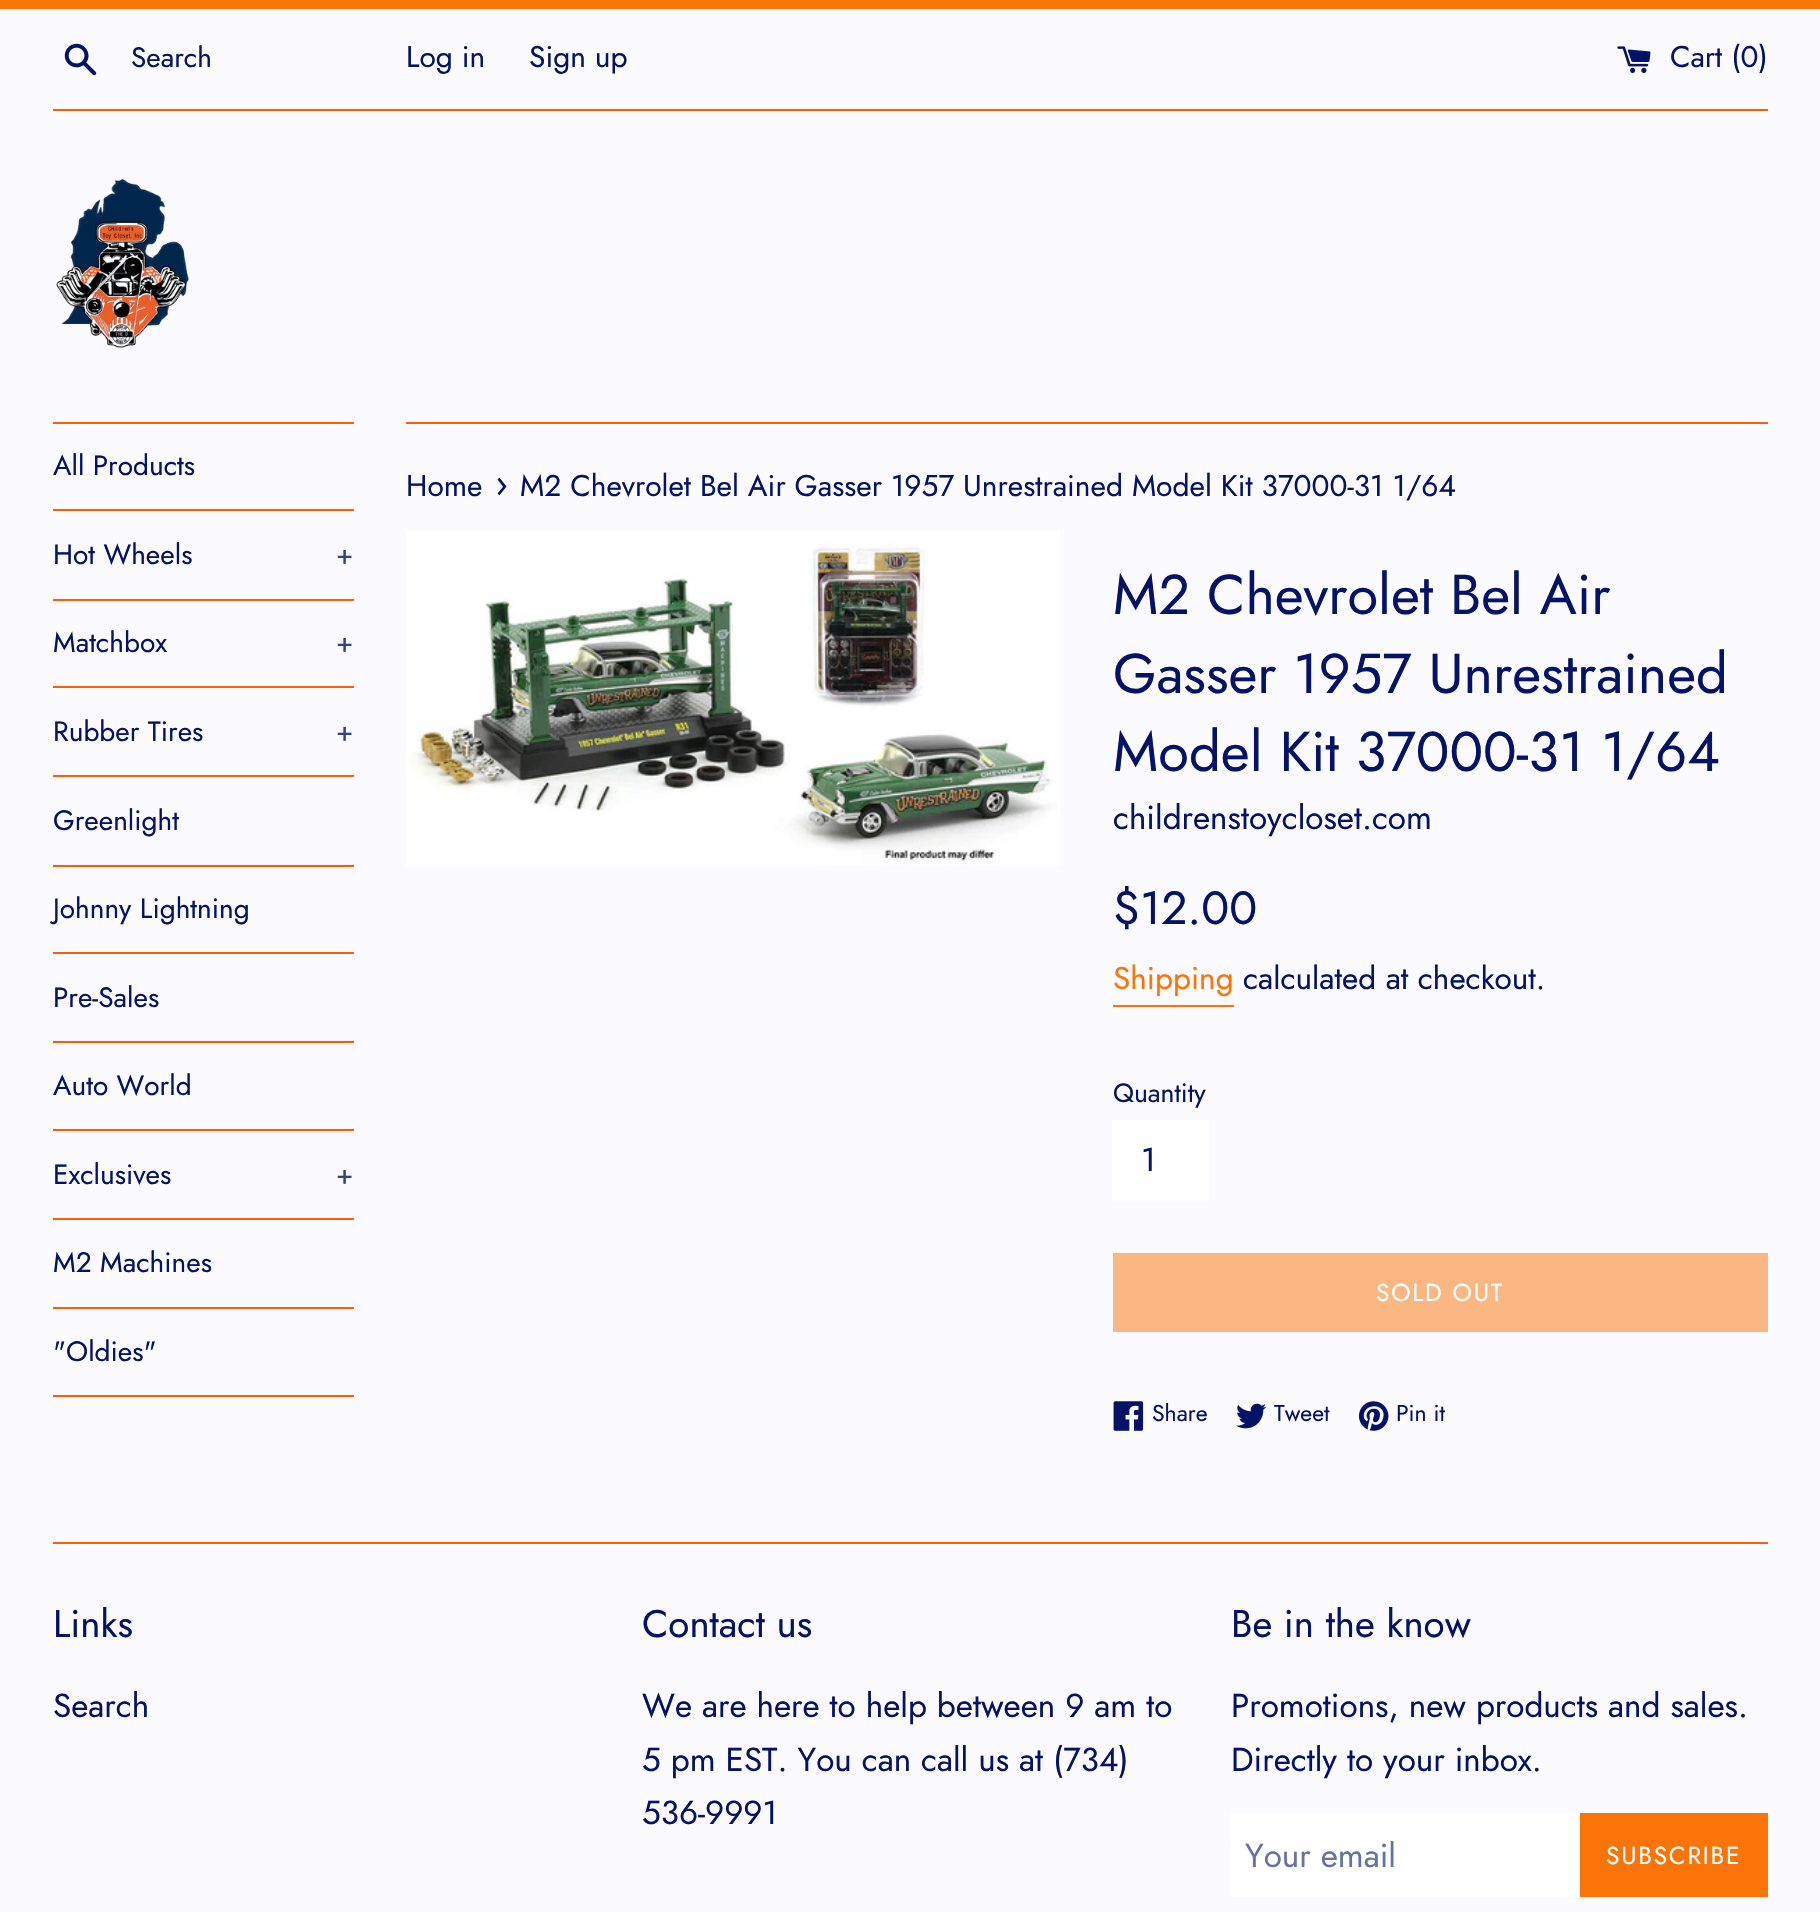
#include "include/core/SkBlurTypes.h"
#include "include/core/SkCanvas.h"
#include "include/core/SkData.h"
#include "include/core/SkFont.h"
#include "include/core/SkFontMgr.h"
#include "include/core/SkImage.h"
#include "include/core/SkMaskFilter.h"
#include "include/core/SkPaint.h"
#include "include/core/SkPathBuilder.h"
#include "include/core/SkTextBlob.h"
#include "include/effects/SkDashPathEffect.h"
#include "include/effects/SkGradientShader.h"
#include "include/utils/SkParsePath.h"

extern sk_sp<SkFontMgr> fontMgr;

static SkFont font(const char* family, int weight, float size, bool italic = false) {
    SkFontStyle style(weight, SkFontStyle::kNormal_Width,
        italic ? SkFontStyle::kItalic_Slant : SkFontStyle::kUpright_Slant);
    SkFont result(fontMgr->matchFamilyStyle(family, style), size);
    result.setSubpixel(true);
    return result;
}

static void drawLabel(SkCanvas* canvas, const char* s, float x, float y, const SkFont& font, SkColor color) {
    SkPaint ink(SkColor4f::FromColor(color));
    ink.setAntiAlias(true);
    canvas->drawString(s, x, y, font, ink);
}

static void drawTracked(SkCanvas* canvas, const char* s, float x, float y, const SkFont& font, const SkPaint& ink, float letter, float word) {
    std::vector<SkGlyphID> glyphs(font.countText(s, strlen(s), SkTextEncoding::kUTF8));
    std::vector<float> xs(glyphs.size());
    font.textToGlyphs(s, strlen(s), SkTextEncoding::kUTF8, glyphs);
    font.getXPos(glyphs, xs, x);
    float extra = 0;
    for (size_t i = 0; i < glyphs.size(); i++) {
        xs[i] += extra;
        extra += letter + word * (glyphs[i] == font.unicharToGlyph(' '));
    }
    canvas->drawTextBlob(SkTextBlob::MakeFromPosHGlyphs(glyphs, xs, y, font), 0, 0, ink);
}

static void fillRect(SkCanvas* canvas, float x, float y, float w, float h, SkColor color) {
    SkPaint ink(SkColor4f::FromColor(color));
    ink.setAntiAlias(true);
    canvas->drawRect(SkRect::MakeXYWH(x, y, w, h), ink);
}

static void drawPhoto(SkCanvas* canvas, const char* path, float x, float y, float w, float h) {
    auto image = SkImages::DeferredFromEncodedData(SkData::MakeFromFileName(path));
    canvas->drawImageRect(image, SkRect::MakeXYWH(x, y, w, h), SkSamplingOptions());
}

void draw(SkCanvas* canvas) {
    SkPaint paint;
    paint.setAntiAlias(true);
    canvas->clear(0xFFFAFAFF);
    fillRect(canvas, 0, 0, 1820, 9, 0xFFFA7408);
    drawPhoto(canvas, "assets/img1.png", 64, 43, 33, 33);
    SkFont font1 = font("Jost", 400, 28);
    drawLabel(canvas, "Search", 131, 67, font1, 0xFF041366);
    SkFont font2 = font("Jost", 400, 29.9f);
    drawLabel(canvas, "Log in", 406, 67, font2, 0xFF041366);
    drawLabel(canvas, "Sign up", 529, 67, font2, 0xFF041366);
    drawPhoto(canvas, "assets/img2.png", 1617, 46, 34, 27);
    drawLabel(canvas, "Cart (0)", 1670, 67, font2, 0xFF041366);
    fillRect(canvas, 53, 109, 1715, 2, 0xFFFA5F08);
    drawPhoto(canvas, "assets/img3.png", 56, 179, 133, 169);
    fillRect(canvas, 53, 422, 301, 2, 0xFFFA5F08);
    fillRect(canvas, 53, 509, 301, 2, 0xFFFA5F08);
    drawLabel(canvas, "All Products", 53, 475, font1, 0xFF041366);
    fillRect(canvas, 53, 599, 301, 2, 0xFFFA5F08);
    drawLabel(canvas, "Hot Wheels", 53, 564, font1, 0xFF041366);
    drawLabel(canvas, "+", 336, 564, font1, 0xFF354185);
    fillRect(canvas, 53, 686, 301, 2, 0xFFFA5F08);
    drawLabel(canvas, "Matchbox", 53, 652, font1, 0xFF041366);
    drawLabel(canvas, "+", 336, 652, font1, 0xFF354185);
    fillRect(canvas, 53, 775, 301, 2, 0xFFFA5F08);
    drawLabel(canvas, "Rubber Tires", 53, 741, font1, 0xFF041366);
    drawLabel(canvas, "+", 336, 741, font1, 0xFF354185);
    fillRect(canvas, 53, 865, 301, 2, 0xFFFA5F08);
    drawLabel(canvas, "Greenlight", 53, 830, font1, 0xFF041366);
    fillRect(canvas, 53, 952, 301, 2, 0xFFFA5F08);
    drawLabel(canvas, "Johnny Lightning", 53, 918, font1, 0xFF041366);
    fillRect(canvas, 53, 1041, 301, 2, 0xFFFA5F08);
    drawLabel(canvas, "Pre-Sales", 53, 1007, font1, 0xFF041366);
    fillRect(canvas, 53, 1129, 301, 2, 0xFFFA5F08);
    drawLabel(canvas, "Auto World", 53, 1095, font1, 0xFF041366);
    fillRect(canvas, 53, 1218, 301, 2, 0xFFFA5F08);
    drawLabel(canvas, "Exclusives", 53, 1184, font1, 0xFF041366);
    drawLabel(canvas, "+", 336, 1184, font1, 0xFF354185);
    fillRect(canvas, 53, 1307, 301, 2, 0xFFFA5F08);
    drawLabel(canvas, "M2 Machines", 53, 1272, font1, 0xFF041366);
    fillRect(canvas, 53, 1395, 301, 2, 0xFFFA5F08);
    drawLabel(canvas, "\"Oldies\"", 53, 1361, font1, 0xFF041366);
    fillRect(canvas, 406, 422, 1362, 2, 0xFFFA5F08);
    drawLabel(canvas, "Home", 406, 496, font2, 0xFF041366);
    SkFont font3 = font("Jost", 400, 37);
    drawLabel(canvas, "›", 495, 496, font3, 0xFF041366);
    drawLabel(canvas, "M2 Chevrolet Bel Air Gasser 1957 Unrestrained Model Kit 37000-31 1/64", 520, 496, font2, 0xFF041366);
    drawPhoto(canvas, "assets/img4.png", 406, 531, 654, 335);
    SkFont font4 = font("Jost", 400, 56);
    drawLabel(canvas, "M2 Chevrolet Bel Air", 1113, 614, font4, 0xFF041366);
    drawLabel(canvas, "Gasser 1957 Unrestrained", 1113, 693, font4, 0xFF041366);
    drawLabel(canvas, "Model Kit 37000-31 1/64", 1113, 771, font4, 0xFF041366);
    SkFont font5 = font("Jost", 400, 33.25f);
    drawLabel(canvas, "childrenstoycloset.com", 1113, 829, font5, 0xFF041366);
    SkFont font6 = font("Jost", 400, 46.5f);
    drawLabel(canvas, "$12.00", 1113, 924, font6, 0xFF041366);
    SkFont font7 = font("Jost", 400, 31.5f);
    drawLabel(canvas, "Shipping", 1113, 989, font7, 0xFFFA7408);
    fillRect(canvas, 1113, 1005, 121, 2, 0xFFFA7408);
    drawLabel(canvas, "calculated at checkout.", 1243, 989, font7, 0xFF041366);
    SkFont font8 = font("Jost", 400, 26.5f);
    drawLabel(canvas, "Quantity", 1113, 1102, font8, 0xFF041366);
    fillRect(canvas, 1113, 1120, 96, 81, 0xFFFFFFFF);
    drawLabel(canvas, "1", 1141, 1171, font5, 0xFF041366);
    fillRect(canvas, 1113, 1253, 655, 79, 0xFFFAB784);
    SkFont font9 = font("Jost", 400, 24.5f);
    paint.setColor(0xFFFDFDFF);
    drawTracked(canvas, "SOLD OUT", 1376, 1301, font9, paint, 1.75f, 0);
    drawPhoto(canvas, "assets/img5.png", 1113, 1401, 31, 30);
    SkFont font10 = font("Jost", 400, 23);
    drawLabel(canvas, "Share", 1152, 1421, font10, 0xFF041366);
    drawPhoto(canvas, "assets/img6.png", 1236, 1403, 31, 26);
    drawLabel(canvas, "Tweet", 1274, 1421, font10, 0xFF041366);
    drawPhoto(canvas, "assets/img7.png", 1358, 1401, 31, 30);
    drawLabel(canvas, "Pin it", 1396, 1421, font10, 0xFF041366);
    fillRect(canvas, 53, 1542, 1715, 2, 0xFFFA5F08);
    SkFont font11 = font("Jost", 400, 38.5f);
    drawLabel(canvas, "Links", 53, 1637, font11, 0xFF041366);
    drawLabel(canvas, "Search", 53, 1717, font5, 0xFF041366);
    drawLabel(canvas, "Contact us", 642, 1637, font11, 0xFF041366);
    drawLabel(canvas, "We are here to help between 9 am to", 642, 1717, font5, 0xFF041366);
    drawLabel(canvas, "5 pm EST. You can call us at (734)", 642, 1771, font5, 0xFF041366);
    drawLabel(canvas, "536-9991", 642, 1824, font5, 0xFF041366);
    drawLabel(canvas, "Be in the know", 1231, 1637, font11, 0xFF041366);
    drawLabel(canvas, "Promotions, new products and sales.", 1231, 1717, font5, 0xFF041366);
    drawLabel(canvas, "Directly to your inbox.", 1231, 1771, font5, 0xFF041366);
    fillRect(canvas, 1230, 1813, 350, 84, 0xFFFFFFFF);
    drawLabel(canvas, "Your email", 1245, 1867, font5, 0xFF6871A3);
    fillRect(canvas, 1580, 1813, 188, 84, 0xFFFA7408);
    drawTracked(canvas, "SUBSCRIBE", 1606, 1864, font9, paint, 1.75f, 0);
}
